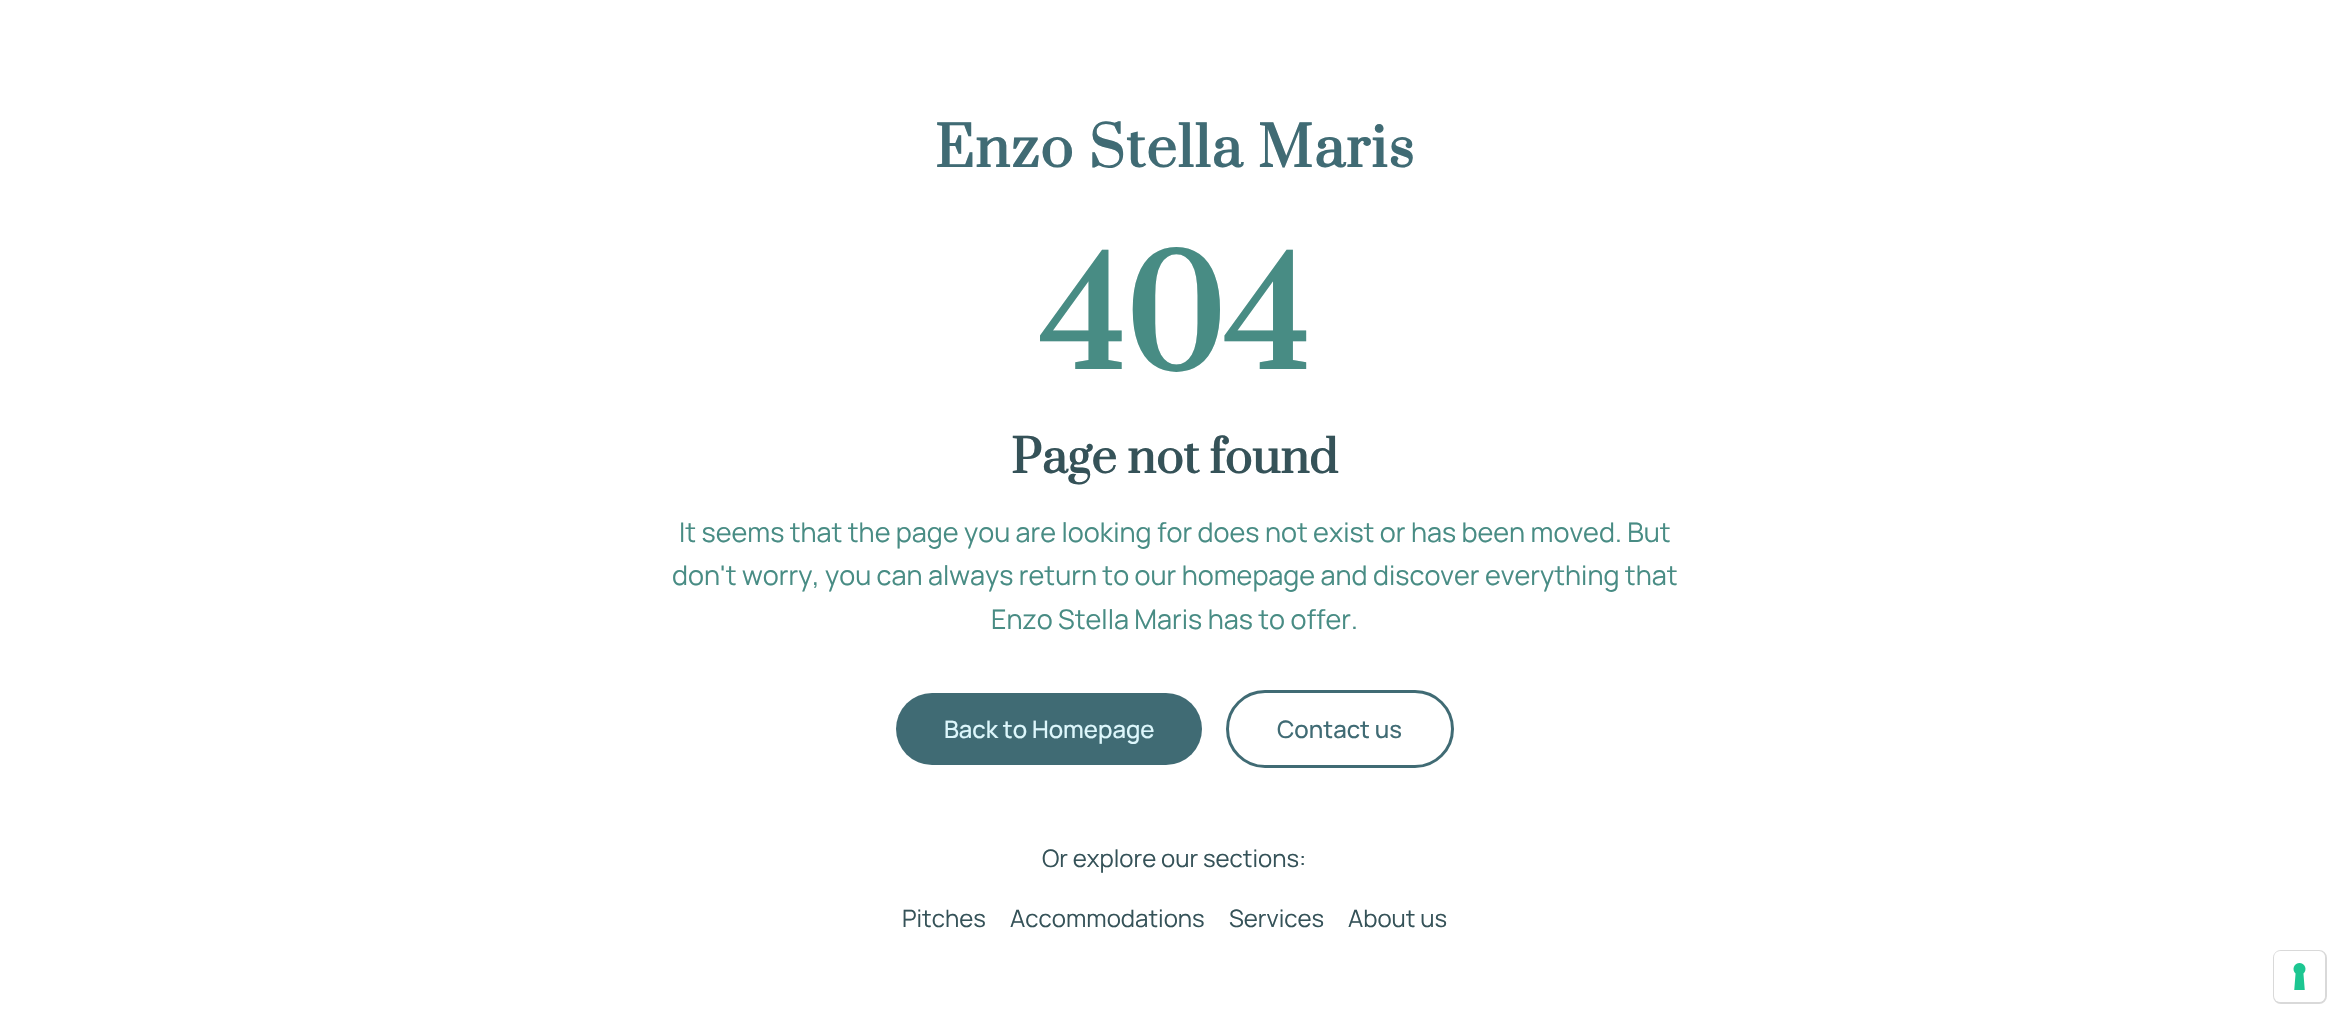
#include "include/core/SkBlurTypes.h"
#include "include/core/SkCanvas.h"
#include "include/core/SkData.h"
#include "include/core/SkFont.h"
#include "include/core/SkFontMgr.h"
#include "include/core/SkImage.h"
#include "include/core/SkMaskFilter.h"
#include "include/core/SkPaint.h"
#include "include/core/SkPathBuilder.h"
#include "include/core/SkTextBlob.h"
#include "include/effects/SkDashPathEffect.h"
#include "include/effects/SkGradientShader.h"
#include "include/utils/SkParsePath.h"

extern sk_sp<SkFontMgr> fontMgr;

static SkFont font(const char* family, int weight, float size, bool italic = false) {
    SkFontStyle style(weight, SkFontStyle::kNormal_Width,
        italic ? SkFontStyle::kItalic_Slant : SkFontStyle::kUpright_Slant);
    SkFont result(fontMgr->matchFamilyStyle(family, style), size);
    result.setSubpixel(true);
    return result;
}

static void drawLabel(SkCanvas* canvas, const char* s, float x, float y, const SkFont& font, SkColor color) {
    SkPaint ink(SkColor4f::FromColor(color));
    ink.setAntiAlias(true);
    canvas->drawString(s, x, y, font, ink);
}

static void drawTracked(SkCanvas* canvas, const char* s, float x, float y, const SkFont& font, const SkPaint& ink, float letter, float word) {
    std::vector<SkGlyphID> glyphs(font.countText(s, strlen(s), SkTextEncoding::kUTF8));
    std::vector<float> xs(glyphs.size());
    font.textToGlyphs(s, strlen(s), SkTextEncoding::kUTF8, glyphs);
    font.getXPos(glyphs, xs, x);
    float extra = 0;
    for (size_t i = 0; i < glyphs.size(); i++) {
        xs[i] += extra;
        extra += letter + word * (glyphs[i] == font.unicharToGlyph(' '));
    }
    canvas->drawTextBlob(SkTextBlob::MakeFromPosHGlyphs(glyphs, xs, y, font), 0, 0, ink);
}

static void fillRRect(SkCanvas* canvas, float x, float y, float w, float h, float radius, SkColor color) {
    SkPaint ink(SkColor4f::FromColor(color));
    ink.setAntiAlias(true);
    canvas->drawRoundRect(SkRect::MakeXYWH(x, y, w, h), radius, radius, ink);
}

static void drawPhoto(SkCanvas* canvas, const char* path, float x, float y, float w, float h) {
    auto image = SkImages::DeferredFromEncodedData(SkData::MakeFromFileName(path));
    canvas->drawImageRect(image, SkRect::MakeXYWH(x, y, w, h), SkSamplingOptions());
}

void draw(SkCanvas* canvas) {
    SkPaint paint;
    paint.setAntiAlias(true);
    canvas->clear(0xFFFFFFFF);
    SkFont font1 = font("Prata", 700, 54);
    paint.setColor(0xFF406B74);
    drawTracked(canvas, "Enzo Stella Maris", 935, 167, font1, paint, 1.4f, 0);
    SkFont font2 = font("Prata", 700, 144);
    drawLabel(canvas, "404", 1040, 369, font2, 0xFF488C84);
    SkFont font3 = font("Prata", 700, 45);
    drawLabel(canvas, "Page not found", 1011, 473, font3, 0xFF355258);
    SkFont font4 = font("Manrope", 400, 27);
    drawLabel(canvas, "It seems that the page you are looking for does not exist or has been moved. But", 679, 542, font4, 0xFF488C84);
    drawLabel(canvas, "don't worry, you can always return to our homepage and discover everything that", 672, 585, font4, 0xFF488C84);
    drawLabel(canvas, "Enzo Stella Maris has to offer.", 991, 629, font4, 0xFF488C84);
    fillRRect(canvas, 896, 693, 306, 72, 36, 0xFF406B74);
    SkFont font5 = font("Manrope", 500, 24);
    drawLabel(canvas, "Back to Homepage", 944, 738, font5, 0xFFDDF7FC);
    paint.setStroke(true);
    paint.setStrokeWidth(3);
    canvas->drawRoundRect(SkRect::MakeXYWH(1227.5f, 691.5f, 225, 75), 37.5f, 37.5f, paint);
    drawLabel(canvas, "Contact us", 1277, 738, font5, 0xFF406B74);
    SkFont font6 = font("Manrope", 400, 24);
    drawLabel(canvas, "Or explore our sections:", 1042, 867, font6, 0xFF355258);
    drawLabel(canvas, "Pitches", 902, 927, font6, 0xFF355258);
    drawLabel(canvas, "Accommodations", 1010, 927, font6, 0xFF355258);
    drawLabel(canvas, "Services", 1229, 927, font6, 0xFF355258);
    drawLabel(canvas, "About us", 1348, 927, font6, 0xFF355258);
    paint.setStrokeWidth(2);
    paint.setColor(0xFFD9D9D9);
    canvas->drawRoundRect(SkRect::MakeXYWH(2274, 951, 52, 52), 7, 7, paint);
    fillRRect(canvas, 2274, 951, 51, 51, 6, 0xFFFFFFFF);
    drawPhoto(canvas, "assets/img1.png", 2293, 963, 13, 27);
}
